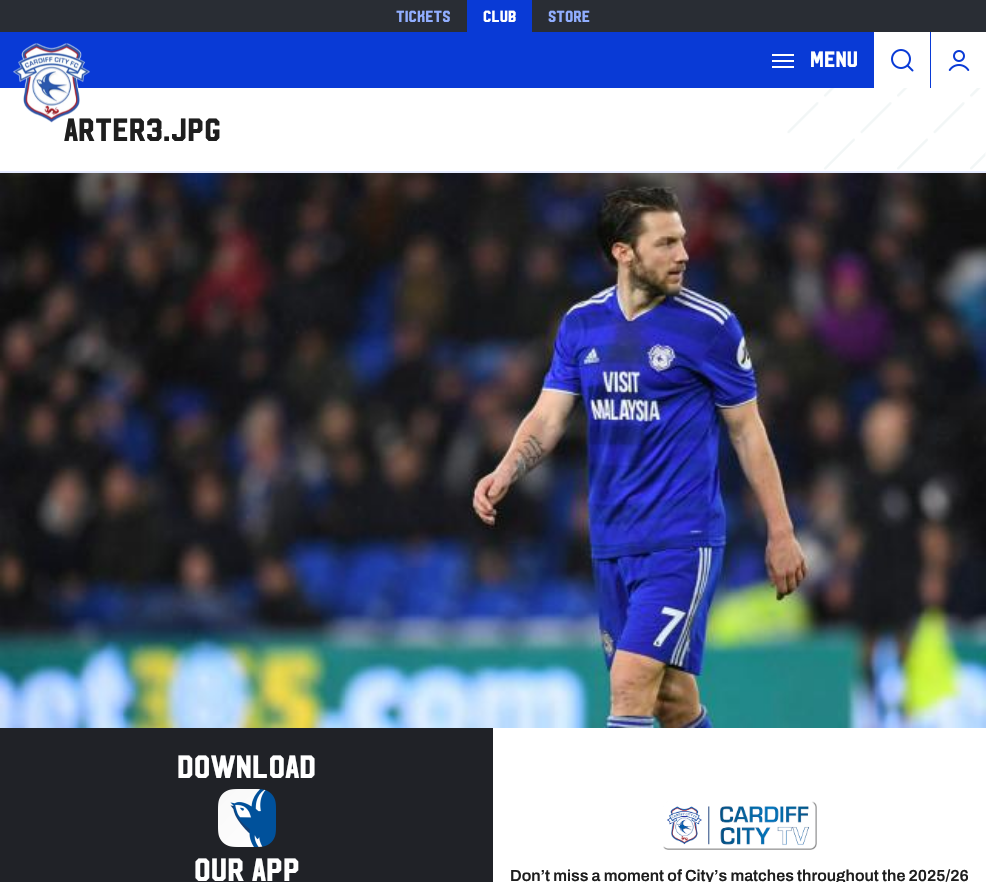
#include "include/core/SkBlurTypes.h"
#include "include/core/SkCanvas.h"
#include "include/core/SkData.h"
#include "include/core/SkFont.h"
#include "include/core/SkFontMgr.h"
#include "include/core/SkImage.h"
#include "include/core/SkMaskFilter.h"
#include "include/core/SkPaint.h"
#include "include/core/SkPathBuilder.h"
#include "include/core/SkTextBlob.h"
#include "include/effects/SkDashPathEffect.h"
#include "include/effects/SkGradientShader.h"
#include "include/utils/SkParsePath.h"

extern sk_sp<SkFontMgr> fontMgr;

static SkFont font(const char* family, int weight, float size, bool italic = false) {
    SkFontStyle style(weight, SkFontStyle::kNormal_Width,
        italic ? SkFontStyle::kItalic_Slant : SkFontStyle::kUpright_Slant);
    SkFont result(fontMgr->matchFamilyStyle(family, style), size);
    result.setSubpixel(true);
    return result;
}

static void drawLabel(SkCanvas* canvas, const char* s, float x, float y, const SkFont& font, SkColor color) {
    SkPaint ink(SkColor4f::FromColor(color));
    ink.setAntiAlias(true);
    canvas->drawString(s, x, y, font, ink);
}

static void fillRect(SkCanvas* canvas, float x, float y, float w, float h, SkColor color) {
    SkPaint ink(SkColor4f::FromColor(color));
    ink.setAntiAlias(true);
    canvas->drawRect(SkRect::MakeXYWH(x, y, w, h), ink);
}

static void drawPhoto(SkCanvas* canvas, const char* path, float x, float y, float w, float h) {
    auto image = SkImages::DeferredFromEncodedData(SkData::MakeFromFileName(path));
    canvas->drawImageRect(image, SkRect::MakeXYWH(x, y, w, h), SkSamplingOptions());
}

void draw(SkCanvas* canvas) {
    SkPaint paint;
    paint.setAntiAlias(true);
    canvas->clear(0xFFFFFFFF);
    fillRect(canvas, 0, 0, 986, 32, 0xFF292D34);
    SkFont font1 = font("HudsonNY", 400, 16);
    drawLabel(canvas, "Tickets", 396, 22, font1, 0xFF91AEFF);
    fillRect(canvas, 467, 0, 65, 32, 0xFF093AD6);
    drawLabel(canvas, "Club", 483, 22, font1, 0xFFFFFFFF);
    drawLabel(canvas, "Store", 548, 22, font1, 0xFF91AEFF);
    fillRect(canvas, 0, 32, 931, 56, 0xFF093AD6);
    SkFont font2 = font("HudsonNY", 400, 32);
    drawLabel(canvas, "arter3.jpg", 64, 141, font2, 0xFF1E1E1E);
    drawPhoto(canvas, "assets/img1.png", 13, 43, 77, 80);
    fillRect(canvas, 772, 60, 22, 2, 0xFFFFFFFF);
    fillRect(canvas, 772, 54, 22, 2, 0xFFFFFFFF);
    fillRect(canvas, 772, 66, 22, 2, 0xFFFFFFFF);
    SkFont font3 = font("HudsonNY", 400, 22);
    drawLabel(canvas, "Menu", 810, 67, font3, 0xFFFFFFFF);
    fillRect(canvas, 874, 32, 56, 56, 0xFFFFFFFF);
    drawPhoto(canvas, "assets/img2.png", 891, 49, 23, 23);
    drawPhoto(canvas, "assets/img3.png", 948, 50, 22, 21);
    drawPhoto(canvas, "assets/img4.png", 787, 88, 199, 82);
    fillRect(canvas, 0, 171, 986, 2, 0xFFE4EAFF);
    drawPhoto(canvas, "assets/img5.png", 0, 173, 986, 555);
    fillRect(canvas, 0, 728, 493, 154, 0xFF202227);
    drawLabel(canvas, "Download", 177, 778, font2, 0xFFFFFFFF);
    drawPhoto(canvas, "assets/img6.png", 218, 789, 58, 58);
    drawLabel(canvas, "our app", 194, 881, font2, 0xFFFFFFFF);
    drawPhoto(canvas, "assets/img7.png", 663, 801, 154, 49);
    SkFont font4 = font("Archivo", 600, 16);
    drawLabel(canvas, "Don’t miss a moment of City’s matches throughout the 2025/26", 510, 881, font4, 0xFF1E1E1E);
}
